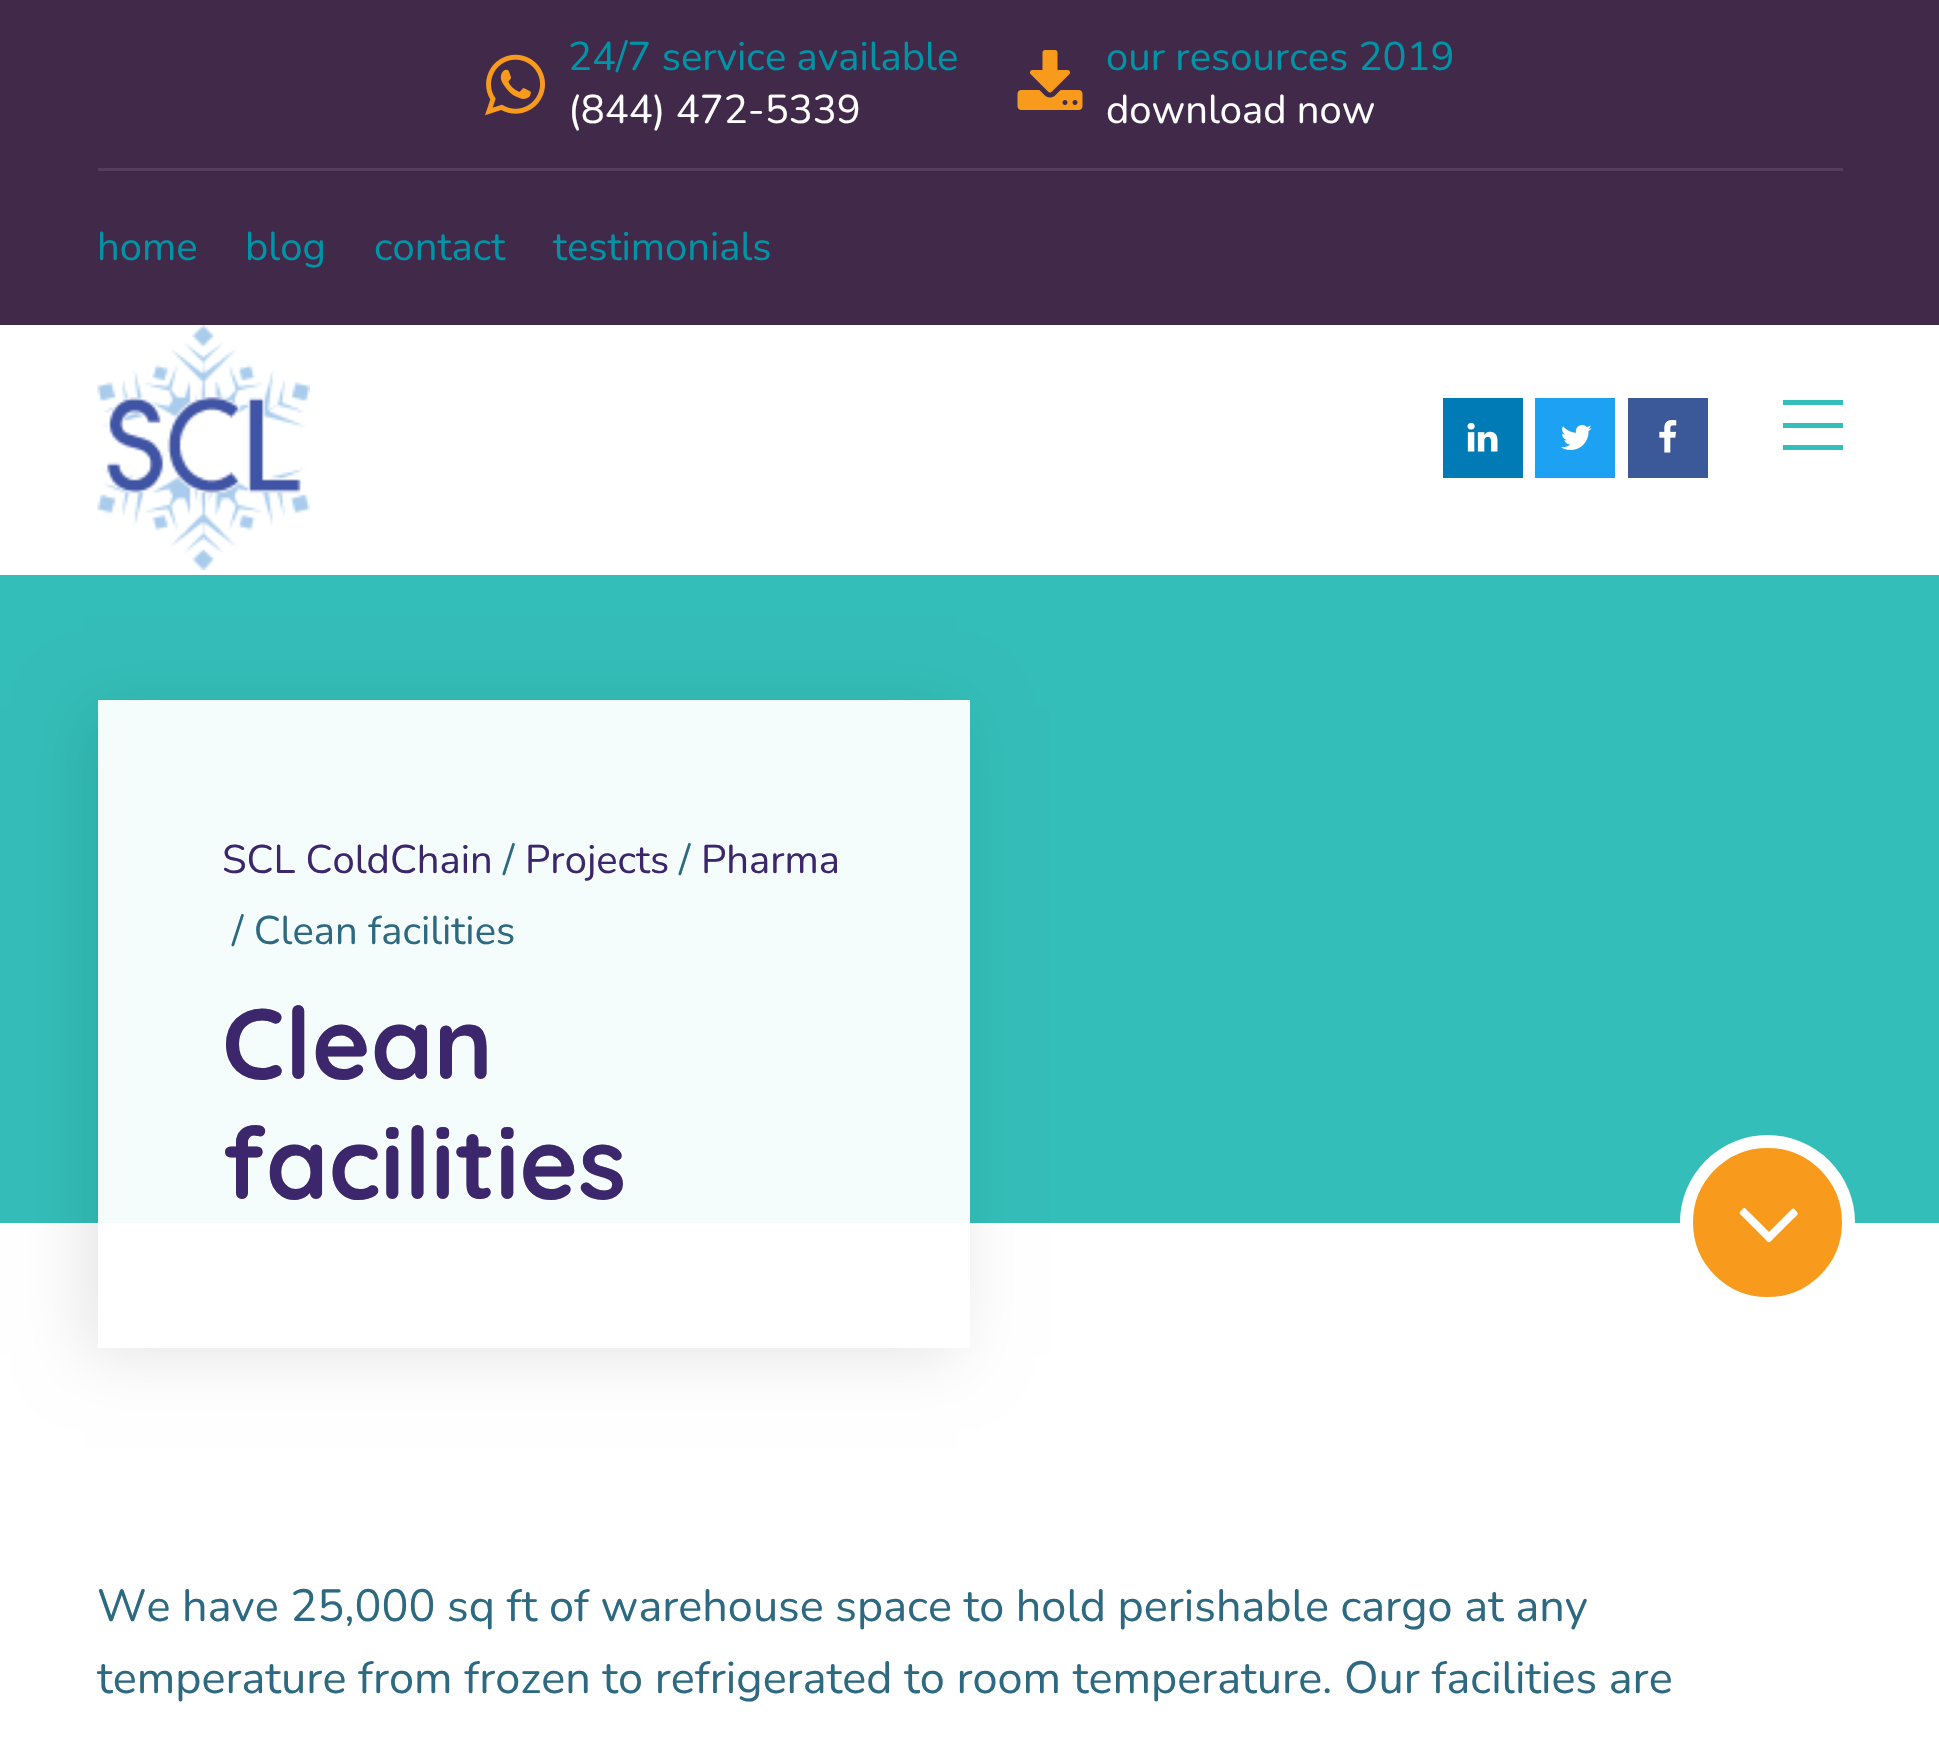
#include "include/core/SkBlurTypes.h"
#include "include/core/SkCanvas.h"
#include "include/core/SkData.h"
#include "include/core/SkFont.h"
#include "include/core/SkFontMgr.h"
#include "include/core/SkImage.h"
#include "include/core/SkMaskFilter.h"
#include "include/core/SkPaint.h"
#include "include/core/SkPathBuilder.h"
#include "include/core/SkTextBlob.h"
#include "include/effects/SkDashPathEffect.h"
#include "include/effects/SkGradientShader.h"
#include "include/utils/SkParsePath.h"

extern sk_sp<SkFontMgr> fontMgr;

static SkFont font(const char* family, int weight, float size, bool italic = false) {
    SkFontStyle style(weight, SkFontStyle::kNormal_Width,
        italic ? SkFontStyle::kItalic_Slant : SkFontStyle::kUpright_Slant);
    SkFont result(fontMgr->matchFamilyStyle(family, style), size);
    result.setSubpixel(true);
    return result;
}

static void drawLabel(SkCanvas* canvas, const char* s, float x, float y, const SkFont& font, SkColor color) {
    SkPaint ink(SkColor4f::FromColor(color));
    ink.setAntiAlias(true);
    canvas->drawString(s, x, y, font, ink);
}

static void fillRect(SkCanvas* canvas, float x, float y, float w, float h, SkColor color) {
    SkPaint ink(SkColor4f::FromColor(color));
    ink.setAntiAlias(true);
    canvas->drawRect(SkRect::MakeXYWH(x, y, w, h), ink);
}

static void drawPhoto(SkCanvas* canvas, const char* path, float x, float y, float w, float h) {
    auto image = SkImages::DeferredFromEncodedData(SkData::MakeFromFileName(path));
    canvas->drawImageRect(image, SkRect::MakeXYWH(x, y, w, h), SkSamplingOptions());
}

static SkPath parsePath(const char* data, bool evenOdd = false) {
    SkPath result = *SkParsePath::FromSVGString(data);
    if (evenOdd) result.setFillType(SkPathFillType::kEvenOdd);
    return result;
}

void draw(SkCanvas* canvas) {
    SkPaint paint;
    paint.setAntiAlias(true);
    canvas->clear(0xFFFFFFFF);
    fillRect(canvas, 0, 0, 1939, 325, 0xFF41294A);
    fillRect(canvas, 98, 168, 1745, 3, 0xFF543E5C);
    drawPhoto(canvas, "assets/img1.png", 485, 54, 60, 62);
    SkFont font1 = font("Nunito", 400, 40);
    drawLabel(canvas, "24/7 service available", 568, 70, font1, 0xFF0094A7);
    drawLabel(canvas, "(844) 472-5339", 568, 123, font1, 0xFFFFFFFF);
    drawPhoto(canvas, "assets/img2.png", 1017, 50, 66, 60);
    drawLabel(canvas, "our resources 2019", 1106, 70, font1, 0xFF0094A7);
    drawLabel(canvas, "download now", 1106, 123, font1, 0xFFFFFFFF);
    drawLabel(canvas, "home", 97, 260, font1, 0xFF0094A7);
    drawLabel(canvas, "blog", 245, 260, font1, 0xFF0094A7);
    drawLabel(canvas, "contact", 374, 260, font1, 0xFF0094A7);
    drawLabel(canvas, "testimonials", 553, 260, font1, 0xFF0094A7);
    drawPhoto(canvas, "assets/img3.png", 97, 325, 213, 245);
    fillRect(canvas, 1443, 398, 80, 80, 0xFF007BB6);
    drawPhoto(canvas, "assets/img4.png", 1467, 422, 31, 30);
    fillRect(canvas, 1535, 398, 80, 80, 0xFF1DA1F2);
    drawPhoto(canvas, "assets/img5.png", 1561, 425, 31, 25);
    fillRect(canvas, 1628, 398, 80, 80, 0xFF3B5998);
    drawPhoto(canvas, "assets/img6.png", 1659, 420, 18, 33);
    fillRect(canvas, 1783, 400, 60, 5, 0xFF34BEB9);
    fillRect(canvas, 1783, 445, 60, 5, 0xFF34BEB9);
    fillRect(canvas, 1783, 423, 60, 5, 0xFF34BEB9);
    fillRect(canvas, 0, 575, 1939, 648, 0xFF34BEB9);
    canvas->save();
    canvas->clipPath(parsePath("M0 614H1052V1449H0ZM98 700H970V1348H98Z", true), true);
    paint.setColor(0x1A000000);
    paint.setMaskFilter(SkMaskFilter::MakeBlur(kNormal_SkBlurStyle, 31));
    canvas->drawRect(SkRect::MakeXYWH(85, 708, 873, 647), paint);
    paint.setMaskFilter(nullptr);
    canvas->restore();
    fillRect(canvas, 98, 700, 872, 648, 0xF2FFFFFF);
    drawLabel(canvas, "SCL ColdChain", 222, 873, font1, 0xFF3C276C);
    drawLabel(canvas, "/", 503, 873, font1, 0xFF2D6A81);
    drawLabel(canvas, "Projects", 525, 873, font1, 0xFF3C276C);
    drawLabel(canvas, "/", 679, 873, font1, 0xFF2D6A81);
    drawLabel(canvas, "Pharma", 701, 873, font1, 0xFF3C276C);
    drawLabel(canvas, "/ Clean facilities", 232, 944, font1, 0xFF2D6A81);
    SkFont font2 = font("Quicksand", 700, 100);
    drawLabel(canvas, "Clean", 222, 1079, font2, 0xFF3C276C);
    drawLabel(canvas, "facilities", 222, 1199, font2, 0xFF3C276C);
    paint.setColor(0xFFF89B1C);
    canvas->drawCircle(1767.5f, 1222.5f, 81, paint);
    paint.setStroke(true);
    paint.setStrokeWidth(13);
    paint.setColor(0xFFFFFFFF);
    canvas->drawCircle(1767.5f, 1222.5f, 81, paint);
    paint.setStroke(false);
    canvas->drawPath(parsePath("M1797 1212C1800 1214 1793 1219 1793 1219L1775 1237C1768 1244 1770 1244 1763 1237L1740 1214C1739 1213 1740 1211 1742 1210C1745 1206 1745 1209 1750 1213L1769 1232L1792 1209C1794 1207 1796 1211 1797 1212Z"), paint);
    SkFont font3 = font("Nunito", 400, 45);
    drawLabel(canvas, "We have 25,000 sq ft of warehouse space to hold perishable cargo at any", 97, 1621, font3, 0xFF2D6A81);
    drawLabel(canvas, "temperature from frozen to refrigerated to room temperature. Our facilities are", 97, 1693, font3, 0xFF2D6A81);
}
